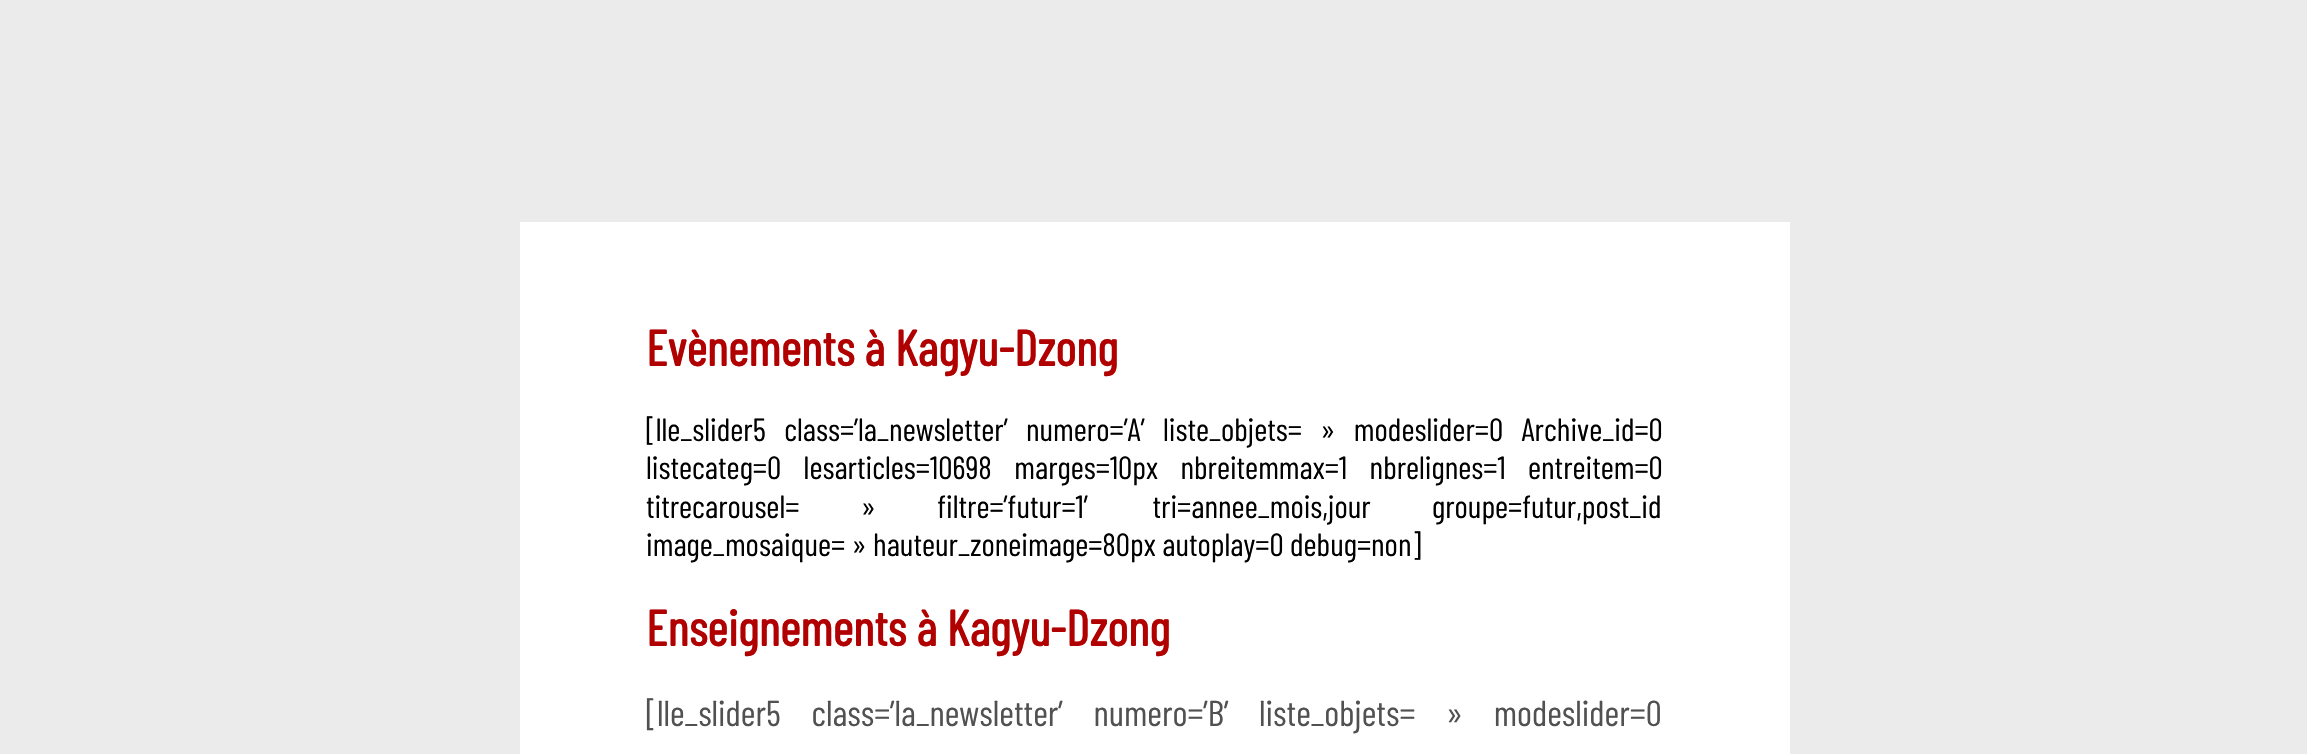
#include "include/core/SkBlurTypes.h"
#include "include/core/SkCanvas.h"
#include "include/core/SkData.h"
#include "include/core/SkFont.h"
#include "include/core/SkFontMgr.h"
#include "include/core/SkImage.h"
#include "include/core/SkMaskFilter.h"
#include "include/core/SkPaint.h"
#include "include/core/SkPathBuilder.h"
#include "include/core/SkTextBlob.h"
#include "include/effects/SkDashPathEffect.h"
#include "include/effects/SkGradientShader.h"
#include "include/utils/SkParsePath.h"

extern sk_sp<SkFontMgr> fontMgr;

static SkFont font(const char* family, int weight, float size, bool italic = false) {
    SkFontStyle style(weight, SkFontStyle::kNormal_Width,
        italic ? SkFontStyle::kItalic_Slant : SkFontStyle::kUpright_Slant);
    SkFont result(fontMgr->matchFamilyStyle(family, style), size);
    result.setSubpixel(true);
    return result;
}

static void drawLabel(SkCanvas* canvas, const char* s, float x, float y, const SkFont& font, SkColor color) {
    SkPaint ink(SkColor4f::FromColor(color));
    ink.setAntiAlias(true);
    canvas->drawString(s, x, y, font, ink);
}

static void drawTracked(SkCanvas* canvas, const char* s, float x, float y, const SkFont& font, const SkPaint& ink, float letter, float word) {
    std::vector<SkGlyphID> glyphs(font.countText(s, strlen(s), SkTextEncoding::kUTF8));
    std::vector<float> xs(glyphs.size());
    font.textToGlyphs(s, strlen(s), SkTextEncoding::kUTF8, glyphs);
    font.getXPos(glyphs, xs, x);
    float extra = 0;
    for (size_t i = 0; i < glyphs.size(); i++) {
        xs[i] += extra;
        extra += letter + word * (glyphs[i] == font.unicharToGlyph(' '));
    }
    canvas->drawTextBlob(SkTextBlob::MakeFromPosHGlyphs(glyphs, xs, y, font), 0, 0, ink);
}

static void fillRect(SkCanvas* canvas, float x, float y, float w, float h, SkColor color) {
    SkPaint ink(SkColor4f::FromColor(color));
    ink.setAntiAlias(true);
    canvas->drawRect(SkRect::MakeXYWH(x, y, w, h), ink);
}

void draw(SkCanvas* canvas) {
    SkPaint paint;
    paint.setAntiAlias(true);
    canvas->clear(0xFFECEBEB);
    fillRect(canvas, 520, 222, 1270, 532, 0xFFFFFFFF);
    SkFont font1 = font("Barlow Condensed", 700, 50);
    drawLabel(canvas, "Evènements à Kagyu-Dzong", 646, 366, font1, 0xFFB00000);
    SkFont font2 = font("Barlow Condensed", 400, 32);
    paint.setColor(0xFF000000);
    drawTracked(canvas, "[lle_slider5 class=’la_newsletter’ numero=’A’ liste_objets= » modeslider=0 Archive_id=0", 646, 441, font2, paint, 0, 12);
    drawTracked(canvas, "listecateg=0 lesarticles=10698 marges=10px nbreitemmax=1 nbrelignes=1 entreitem=0", 646, 479, font2, paint, 0, 16);
    drawTracked(canvas, "titrecarousel= » filtre=’futur=1′ tri=annee_mois,jour groupe=futur,post_id", 646, 518, font2, paint, 0, 55);
    drawLabel(canvas, "image_mosaique= » hauteur_zoneimage=80px autoplay=0 debug=non]", 646, 556, font2, 0xFF000000);
    drawLabel(canvas, "Enseignements à Kagyu-Dzong", 646, 646, font1, 0xFFB00000);
    SkFont font3 = font("Barlow Condensed", 400, 36);
    paint.setColor(0xFF515151);
    drawTracked(canvas, "[lle_slider5 class=’la_newsletter’ numero=’B’ liste_objets= » modeslider=0", 646, 726, font3, paint, 0, 23.5f);
}
